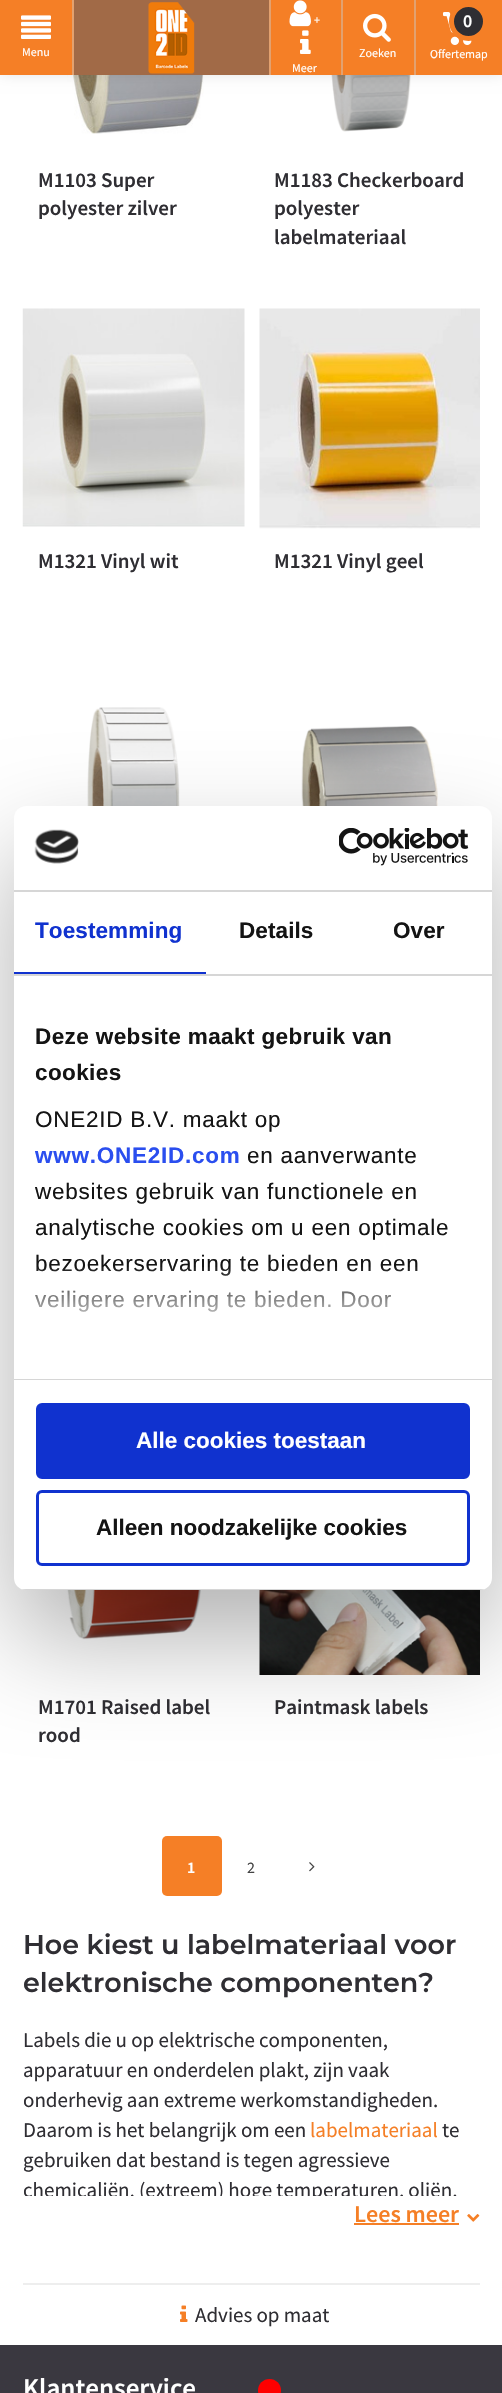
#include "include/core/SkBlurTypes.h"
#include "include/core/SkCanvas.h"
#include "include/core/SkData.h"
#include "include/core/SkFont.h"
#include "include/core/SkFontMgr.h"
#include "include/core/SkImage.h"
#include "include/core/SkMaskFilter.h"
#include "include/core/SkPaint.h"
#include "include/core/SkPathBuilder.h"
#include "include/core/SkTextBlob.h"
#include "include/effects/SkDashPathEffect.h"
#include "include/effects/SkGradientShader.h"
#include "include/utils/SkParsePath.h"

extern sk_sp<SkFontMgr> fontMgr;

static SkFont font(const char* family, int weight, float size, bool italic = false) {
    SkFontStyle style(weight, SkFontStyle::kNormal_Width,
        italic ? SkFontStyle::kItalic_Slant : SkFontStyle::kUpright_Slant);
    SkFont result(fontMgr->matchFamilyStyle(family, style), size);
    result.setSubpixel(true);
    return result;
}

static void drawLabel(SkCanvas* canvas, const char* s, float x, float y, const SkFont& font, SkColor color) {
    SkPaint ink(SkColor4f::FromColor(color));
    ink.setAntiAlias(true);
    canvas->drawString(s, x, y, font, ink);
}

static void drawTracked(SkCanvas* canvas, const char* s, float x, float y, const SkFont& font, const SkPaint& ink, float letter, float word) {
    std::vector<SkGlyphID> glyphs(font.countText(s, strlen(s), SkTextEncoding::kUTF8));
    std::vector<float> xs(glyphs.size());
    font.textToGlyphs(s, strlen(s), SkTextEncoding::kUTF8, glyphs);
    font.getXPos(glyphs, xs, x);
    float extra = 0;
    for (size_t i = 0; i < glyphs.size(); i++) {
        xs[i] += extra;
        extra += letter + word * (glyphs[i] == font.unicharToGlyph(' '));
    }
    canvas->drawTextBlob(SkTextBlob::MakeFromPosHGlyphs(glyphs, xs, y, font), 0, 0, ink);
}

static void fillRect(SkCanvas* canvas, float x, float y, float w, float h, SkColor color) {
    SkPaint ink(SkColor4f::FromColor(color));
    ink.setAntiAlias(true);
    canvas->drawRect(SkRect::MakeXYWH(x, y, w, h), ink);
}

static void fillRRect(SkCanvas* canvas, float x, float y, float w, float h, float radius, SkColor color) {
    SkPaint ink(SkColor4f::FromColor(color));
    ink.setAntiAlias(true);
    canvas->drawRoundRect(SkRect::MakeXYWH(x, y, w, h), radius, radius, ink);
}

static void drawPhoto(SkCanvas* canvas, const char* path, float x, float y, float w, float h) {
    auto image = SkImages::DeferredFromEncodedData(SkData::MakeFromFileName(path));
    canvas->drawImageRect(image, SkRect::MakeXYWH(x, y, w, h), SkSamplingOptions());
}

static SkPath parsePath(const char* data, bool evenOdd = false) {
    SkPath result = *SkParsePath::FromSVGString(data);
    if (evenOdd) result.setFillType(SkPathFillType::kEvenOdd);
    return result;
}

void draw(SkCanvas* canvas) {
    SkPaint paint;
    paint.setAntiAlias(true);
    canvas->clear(0xFFFFFFFF);
    drawPhoto(canvas, "assets/img7.png", 67, 75, 137, 59);
    drawPhoto(canvas, "assets/img8.png", 331, 75, 80, 57);
    paint.setColor(0x26000000);
    paint.setMaskFilter(SkMaskFilter::MakeBlur(kNormal_SkBlurStyle, 7.5f));
    canvas->drawRect(SkRect::MakeXYWH(0, -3, 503, 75), paint);
    paint.setMaskFilter(nullptr);
    fillRect(canvas, 0, 0, 502, 75, 0xFFF57F26);
    fillRect(canvas, 72, 0, 2, 75, 0xFFE2A170);
    drawPhoto(canvas, "assets/img1.png", 21, 15, 30, 24);
    SkFont font1 = font("Source Sans Pro", 400, 12);
    drawLabel(canvas, "Menu", 22, 56, font1, 0xFFFFFFFF);
    fillRect(canvas, 74, 0, 195, 75, 0xFFA16A47);
    fillRect(canvas, 269, 0, 2, 75, 0xFFE2A170);
    drawPhoto(canvas, "assets/img2.png", 148, 2, 47, 72);
    fillRect(canvas, 341, 0, 2, 75, 0xFFE2A170);
    drawPhoto(canvas, "assets/img3.png", 289, 0, 22, 27);
    drawLabel(canvas, "+", 314, 24, font1, 0xFFFFFFFF);
    drawPhoto(canvas, "assets/img4.png", 300, 30, 11, 24);
    drawLabel(canvas, "Meer", 292, 72, font1, 0xFFFFFFFF);
    fillRect(canvas, 414, 0, 2, 75, 0xFFE2A170);
    drawPhoto(canvas, "assets/img5.png", 363, 13, 28, 29);
    drawLabel(canvas, "Zoeken", 359, 57, font1, 0xFFFFFFFF);
    drawPhoto(canvas, "assets/img6.png", 443, 12, 29, 33);
    paint.setColor(0xFF2F2E33);
    canvas->drawCircle(468.5f, 21.5f, 17, paint);
    paint.setStroke(true);
    paint.setStrokeWidth(5);
    paint.setColor(0xFFF57F26);
    canvas->drawCircle(468.5f, 21.5f, 17, paint);
    SkFont font2 = font("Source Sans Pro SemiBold", 600, 18);
    drawLabel(canvas, "0", 463, 27, font2, 0xFFFFFFFF);
    drawLabel(canvas, "Offertemap", 430, 58, font1, 0xFFFFFFFF);
    SkFont font3 = font("Source Sans Pro SemiBold", 600, 21);
    drawLabel(canvas, "M1103 Super", 38, 187, font3, 0xFF2F2E33);
    drawLabel(canvas, "polyester zilver", 38, 215, font3, 0xFF2F2E33);
    drawLabel(canvas, "M1183 Checkerboard", 274, 187, font3, 0xFF2F2E33);
    drawLabel(canvas, "polyester", 274, 215, font3, 0xFF2F2E33);
    drawLabel(canvas, "labelmateriaal", 274, 244, font3, 0xFF2F2E33);
    drawPhoto(canvas, "assets/img9.png", 22, 308, 223, 219);
    drawLabel(canvas, "M1321 Vinyl wit", 38, 568, font3, 0xFF2F2E33);
    drawPhoto(canvas, "assets/img10.png", 259, 308, 221, 221);
    drawLabel(canvas, "M1321 Vinyl geel", 274, 568, font3, 0xFF2F2E33);
    drawPhoto(canvas, "assets/img11.png", 87, 707, 93, 99);
    drawPhoto(canvas, "assets/img12.png", 301, 726, 137, 80);
    drawPhoto(canvas, "assets/img13.png", 67, 1590, 134, 50);
    drawLabel(canvas, "M1701 Raised label", 38, 1714, font3, 0xFF2F2E33);
    drawLabel(canvas, "rood", 38, 1742, font3, 0xFF2F2E33);
    drawPhoto(canvas, "assets/img14.png", 259, 1590, 221, 85);
    drawLabel(canvas, "Paintmask labels", 274, 1714, font3, 0xFF2F2E33);
    fillRRect(canvas, 162, 1836, 60, 60, 5, 0xFFF57F26);
    SkFont font4 = font("Source Sans Pro SemiBold", 600, 16);
    drawLabel(canvas, "1", 187, 1873, font4, 0xFFFFFFFF);
    SkFont font5 = font("Source Sans Pro", 400, 16);
    drawLabel(canvas, "2", 247, 1873, font5, 0xFF444444);
    drawPhoto(canvas, "assets/img15.png", 309, 1862, 6, 10);
    SkFont font6 = font("Montserrat", 600, 27);
    drawLabel(canvas, "Hoe kiest u labelmateriaal voor", 23, 1954, font6, 0xFF2F2E33);
    drawLabel(canvas, "elektronische componenten?", 23, 1992, font6, 0xFF2F2E33);
    SkFont font7 = font("Source Sans Pro", 400, 21);
    drawLabel(canvas, "Labels die u op elektrische componenten,", 23, 2047, font7, 0xFF2F2E33);
    drawLabel(canvas, "apparatuur en onderdelen plakt, zijn vaak", 23, 2077, font7, 0xFF2F2E33);
    drawLabel(canvas, "onderhevig aan extreme werkomstandigheden.", 23, 2107, font7, 0xFF2F2E33);
    drawLabel(canvas, "Daarom is het belangrijk om een", 23, 2137, font7, 0xFF2F2E33);
    drawLabel(canvas, "labelmateriaal", 310, 2137, font7, 0xFFF57F26);
    drawLabel(canvas, "te", 442, 2137, font7, 0xFF2F2E33);
    drawLabel(canvas, "gebruiken dat bestand is tegen agressieve", 23, 2167, font7, 0xFF2F2E33);
    canvas->save();
    canvas->clipRect(SkRect::MakeXYWH(23, 1926, 457, 270));
    drawLabel(canvas, "chemicaliën, (extreem) hoge temperaturen, oliën,", 23, 2197, font7, 0xFF2F2E33);
    canvas->restore();
    SkFont font8 = font("Source Sans Pro SemiBold", 600, 24);
    drawLabel(canvas, "Lees meer", 354, 2222, font8, 0xFFF57F26);
    fillRect(canvas, 354, 2223, 105, 2, 0xFFF57F26);
    drawPhoto(canvas, "assets/img16.png", 467, 2214, 13, 8);
    fillRect(canvas, 23, 2283, 457, 2, 0xFFEEEEEE);
    drawPhoto(canvas, "assets/img17.png", 180, 2305, 8, 17);
    drawLabel(canvas, "Advies op maat", 195, 2322, font7, 0xFF2F2E33);
    fillRect(canvas, 0, 2345, 502, 48, 0xFF3A3840);
    SkFont font9 = font("Source Sans Pro SemiBold", 600, 27);
    drawLabel(canvas, "Klantenservice", 23, 2397, font9, 0xFFFFFFFF);
    paint.setStroke(false);
    paint.setColor(0xFFFF0000);
    canvas->drawCircle(269.5f, 2390.5f, 11.5f, paint);
    paint.setColor(0x4D000000);
    paint.setMaskFilter(SkMaskFilter::MakeBlur(kNormal_SkBlurStyle, 51));
    canvas->drawRoundRect(SkRect::MakeXYWH(14, 854, 478, 784), 12, 12, paint);
    paint.setMaskFilter(nullptr);
    fillRRect(canvas, 14, 806, 478, 784, 12, 0xFFFFFFFF);
    fillRect(canvas, 14, 890, 478, 2, 0xFFD6D6D6);
    drawPhoto(canvas, "assets/img18.png", 34, 829, 45, 35);
    drawPhoto(canvas, "assets/img19.png", 339, 828, 130, 38);
    fillRect(canvas, 14, 974, 478, 2, 0xFFD6D6D6);
    fillRect(canvas, 14, 972, 192, 2, 0xFF1032CF);
    SkFont font10 = font("Liberation Sans", 700, 22.5f);
    paint.setColor(0xFF1032CF);
    drawTracked(canvas, "Toestemming", 35, 938, font10, paint, 0.1f, 0);
    paint.setColor(0xFF141414);
    drawTracked(canvas, "Details", 239, 938, font10, paint, 0.1f, 0);
    drawTracked(canvas, "Over", 393, 938, font10, paint, 0.1f, 0);
    fillRect(canvas, 14, 1379, 478, 1, 0xFFD6D6D6);
    drawTracked(canvas, "Deze website maakt gebruik van", 35, 1044, font10, paint, 0.4f, 0);
    drawTracked(canvas, "cookies", 35, 1080, font10, paint, 0.4f, 0);
    SkFont font11 = font("Liberation Sans", 400, 22.5f);
    drawTracked(canvas, "ONE2ID B.V. maakt op", 35, 1127, font11, paint, 0.75f, 0);
    paint.setColor(0xFF2A4EEF);
    drawTracked(canvas, "www.ONE2ID.com", 35, 1163, font10, paint, 0.75f, 0);
    paint.setColor(0xFF141414);
    drawTracked(canvas, "en aanverwante", 247, 1163, font11, paint, 0.75f, 0);
    drawTracked(canvas, "websites gebruik van functionele en", 35, 1199, font11, paint, 0.75f, 0);
    drawTracked(canvas, "analytische cookies om u een optimale", 35, 1235, font11, paint, 0.75f, 0);
    drawTracked(canvas, "bezoekerservaring te bieden en een", 35, 1271, font11, paint, 0.75f, 0);
    drawTracked(canvas, "veiligere ervaring te bieden. Door", 35, 1307, font11, paint, 0.75f, 0);
    {
        const SkColor colors[] = {0xFFFFFFFF, 0xCCFFFFFF, 0x00FFFFFF};
        const float stops[] = {0, 0.5f, 1};
        const SkPoint ends[] = {{242, 1378}, {242, 1265}};
        paint.setShader(SkGradientShader::MakeLinear(ends, colors, stops, 3, SkTileMode::kClamp));
        paint.setAlpha(255);
    }
    canvas->drawRect(SkRect::MakeXYWH(34, 1267, 383, 45), paint);
    canvas->save();
    canvas->clipPath(parsePath("M26 806H480C486.5 806 492 811.5 492 818V1578C492 1584.5 486.5 1590 480 1590H26C19.5 1590 14 1584.5 14 1578V818C14 811.5 19.5 806 26 806Z"), true);
    fillRect(canvas, 14, 1589, 478, 1, 0xFFD6D6D6);
    canvas->restore();
    paint.setShader(nullptr);
    paint.setColor(0xFF1032CF);
    canvas->drawRoundRect(SkRect::MakeXYWH(37.5f, 1404.5f, 431, 73), 4.5f, 4.5f, paint);
    paint.setStroke(true);
    paint.setStrokeWidth(3);
    canvas->drawRoundRect(SkRect::MakeXYWH(37.5f, 1404.5f, 431, 73), 4.5f, 4.5f, paint);
    drawLabel(canvas, "Alle cookies toestaan", 136, 1448, font10, 0xFFFFFFFF);
    canvas->drawRoundRect(SkRect::MakeXYWH(37.5f, 1491.5f, 431, 73), 4.5f, 4.5f, paint);
    drawLabel(canvas, "Alleen noodzakelijke cookies", 96, 1535, font10, 0xFF141414);
}
